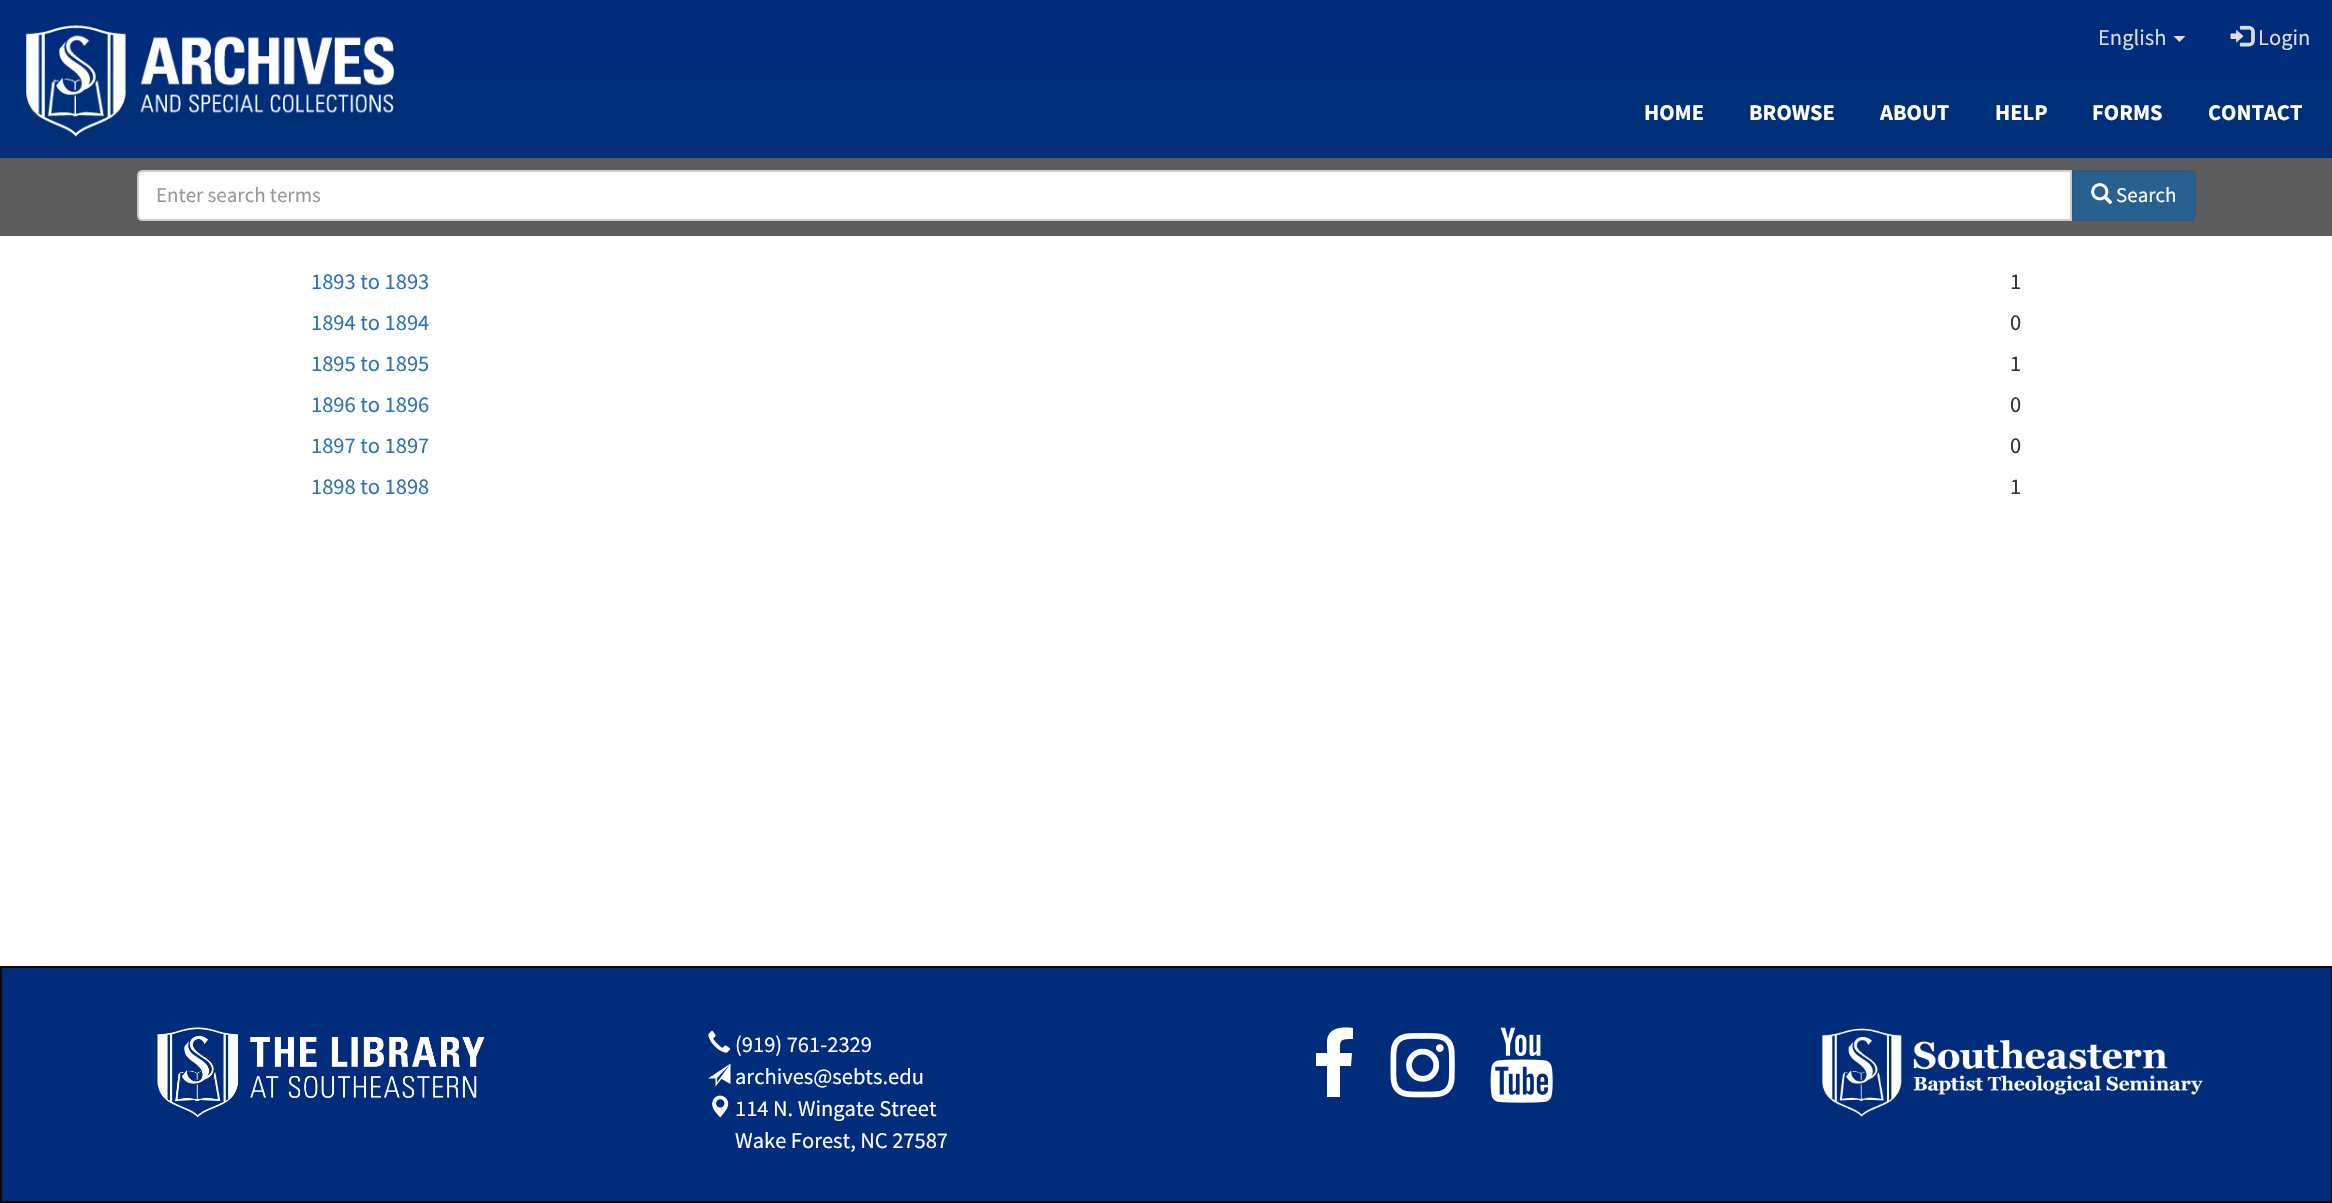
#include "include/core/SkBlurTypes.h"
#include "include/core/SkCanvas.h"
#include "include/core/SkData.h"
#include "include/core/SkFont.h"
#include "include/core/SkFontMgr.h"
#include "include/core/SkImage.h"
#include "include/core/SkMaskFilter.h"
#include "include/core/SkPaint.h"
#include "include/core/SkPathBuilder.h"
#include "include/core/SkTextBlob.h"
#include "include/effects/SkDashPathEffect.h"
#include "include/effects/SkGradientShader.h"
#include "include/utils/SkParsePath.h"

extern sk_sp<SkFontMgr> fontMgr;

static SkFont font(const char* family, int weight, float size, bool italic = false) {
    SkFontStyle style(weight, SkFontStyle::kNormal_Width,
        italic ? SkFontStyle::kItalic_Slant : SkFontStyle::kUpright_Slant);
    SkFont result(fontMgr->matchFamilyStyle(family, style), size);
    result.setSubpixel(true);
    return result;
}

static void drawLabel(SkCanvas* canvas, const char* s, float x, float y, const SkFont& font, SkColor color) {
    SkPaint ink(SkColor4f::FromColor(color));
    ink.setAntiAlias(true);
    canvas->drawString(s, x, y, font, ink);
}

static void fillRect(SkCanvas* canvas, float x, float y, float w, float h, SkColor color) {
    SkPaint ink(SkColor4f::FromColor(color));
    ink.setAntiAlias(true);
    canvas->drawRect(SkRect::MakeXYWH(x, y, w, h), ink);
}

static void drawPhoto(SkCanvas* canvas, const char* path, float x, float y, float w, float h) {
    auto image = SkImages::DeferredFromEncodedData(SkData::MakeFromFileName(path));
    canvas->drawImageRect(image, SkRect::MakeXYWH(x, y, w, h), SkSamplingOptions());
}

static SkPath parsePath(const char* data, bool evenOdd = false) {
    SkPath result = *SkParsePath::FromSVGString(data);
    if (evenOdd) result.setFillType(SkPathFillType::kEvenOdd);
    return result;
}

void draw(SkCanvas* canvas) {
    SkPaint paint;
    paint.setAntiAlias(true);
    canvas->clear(0xFFFFFFFF);
    fillRect(canvas, 0, 75, 2332, 83, 0xFF002F7A);
    fillRect(canvas, 0, 0, 2332, 75, 0xFF002C7B);
    drawPhoto(canvas, "assets/img1.png", 26, 25, 368, 112);
    SkFont font1 = font("Source Sans Pro", 400, 22.5f);
    drawLabel(canvas, "English", 2098, 45, font1, 0xFFDCDCDC);
    paint.setColor(0xFFDCDCDC);
    canvas->drawPath(parsePath("M2173.5 36H2185.5L2179.5 42Z"), paint);
    drawPhoto(canvas, "assets/img2.png", 2230, 25, 25, 22);
    drawLabel(canvas, "Login", 2258, 45, font1, 0xFFDCDCDC);
    SkFont font2 = font("Source Sans Pro", 700, 22.5f);
    drawLabel(canvas, "HOME", 1644, 120, font2, 0xFFFFFFFF);
    drawLabel(canvas, "BROWSE", 1749, 120, font2, 0xFFFFFFFF);
    drawLabel(canvas, "ABOUT", 1880, 120, font2, 0xFFFFFFFF);
    drawLabel(canvas, "HELP", 1995, 120, font2, 0xFFFFFFFF);
    drawLabel(canvas, "FORMS", 2092, 120, font2, 0xFFFFFFFF);
    drawLabel(canvas, "CONTACT", 2208, 120, font2, 0xFFFFFFFF);
    fillRect(canvas, 0, 158, 2332, 78, 0xFF5C5C5C);
    paint.setColor(0xFFFFFFFF);
    canvas->drawPath(parsePath("M143 171H2071V220H143C140 220 138 218 138 215V176C138 173 140 171 143 171Z"), paint);
    paint.setStroke(true);
    paint.setStrokeWidth(2);
    paint.setColor(0xFFCCCCCC);
    canvas->drawPath(parsePath("M143 171H2071V220H143C140 220 138 218 138 215V176C138 173 140 171 143 171Z"), paint);
    SkFont font3 = font("Source Sans Pro", 400, 21);
    drawLabel(canvas, "Enter search terms", 156, 202, font3, 0xFF999999);
    paint.setStroke(false);
    paint.setColor(0xFF286090);
    canvas->drawPath(parsePath("M2073 171H2190C2193 171 2195 173 2195 176V215C2195 218 2193 220 2190 220H2073Z"), paint);
    paint.setStroke(true);
    paint.setColor(0xFF265B89);
    canvas->drawPath(parsePath("M2073 171H2190C2193 171 2195 173 2195 176V215C2195 218 2193 220 2190 220H2073Z"), paint);
    drawPhoto(canvas, "assets/img3.png", 2091, 183, 22, 22);
    drawLabel(canvas, "Search", 2116, 202, font3, 0xFFFFFFFF);
    drawLabel(canvas, "1893 to 1893", 311, 289, font1, 0xFF2E74B2);
    drawLabel(canvas, "1", 2010, 289, font1, 0xFF333333);
    drawLabel(canvas, "1894 to 1894", 311, 330, font1, 0xFF2E74B2);
    drawLabel(canvas, "0", 2010, 330, font1, 0xFF333333);
    drawLabel(canvas, "1895 to 1895", 311, 371, font1, 0xFF2E74B2);
    drawLabel(canvas, "1", 2010, 371, font1, 0xFF333333);
    drawLabel(canvas, "1896 to 1896", 311, 412, font1, 0xFF2E74B2);
    drawLabel(canvas, "0", 2010, 412, font1, 0xFF333333);
    drawLabel(canvas, "1897 to 1897", 311, 453, font1, 0xFF2E74B2);
    drawLabel(canvas, "0", 2010, 453, font1, 0xFF333333);
    drawLabel(canvas, "1898 to 1898", 311, 494, font1, 0xFF2E74B2);
    drawLabel(canvas, "1", 2010, 494, font1, 0xFF333333);
    paint.setStroke(false);
    paint.setColor(0xFF002C7B);
    canvas->drawRect(SkRect::MakeXYWH(1, 967, 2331, 235), paint);
    paint.setStroke(true);
    paint.setColor(0xFF090909);
    canvas->drawRect(SkRect::MakeXYWH(1, 967, 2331, 235), paint);
    drawPhoto(canvas, "assets/img4.png", 157, 1027, 328, 91);
    drawPhoto(canvas, "assets/img5.png", 708, 1030, 23, 23);
    drawLabel(canvas, "(919) 761-2329", 735, 1052, font1, 0xFFFFFFFF);
    drawPhoto(canvas, "assets/img6.png", 708, 1063, 23, 24);
    drawLabel(canvas, "archives@sebts.edu", 735, 1084, font1, 0xFFFFFFFF);
    drawPhoto(canvas, "assets/img7.png", 712, 1095, 17, 23);
    drawLabel(canvas, "114 N. Wingate Street", 735, 1116, font1, 0xFFFFFFFF);
    drawLabel(canvas, "Wake Forest, NC 27587", 735, 1148, font1, 0xFFFFFFFF);
    paint.setStroke(false);
    paint.setColor(0xFFFFFFFF);
    canvas->drawPath(parsePath("M1353 1028V1039C1339 1039 1340 1040 1340 1053H1352L1351 1066H1340V1097H1327V1066H1316V1053H1327V1040C1329 1027 1342 1027 1353 1028Z"), paint);
    drawPhoto(canvas, "assets/img8.png", 1390, 1033, 65, 65);
    drawPhoto(canvas, "assets/img9.png", 1490, 1027, 63, 76);
    drawPhoto(canvas, "assets/img10.png", 1821, 1028, 382, 89);
}
